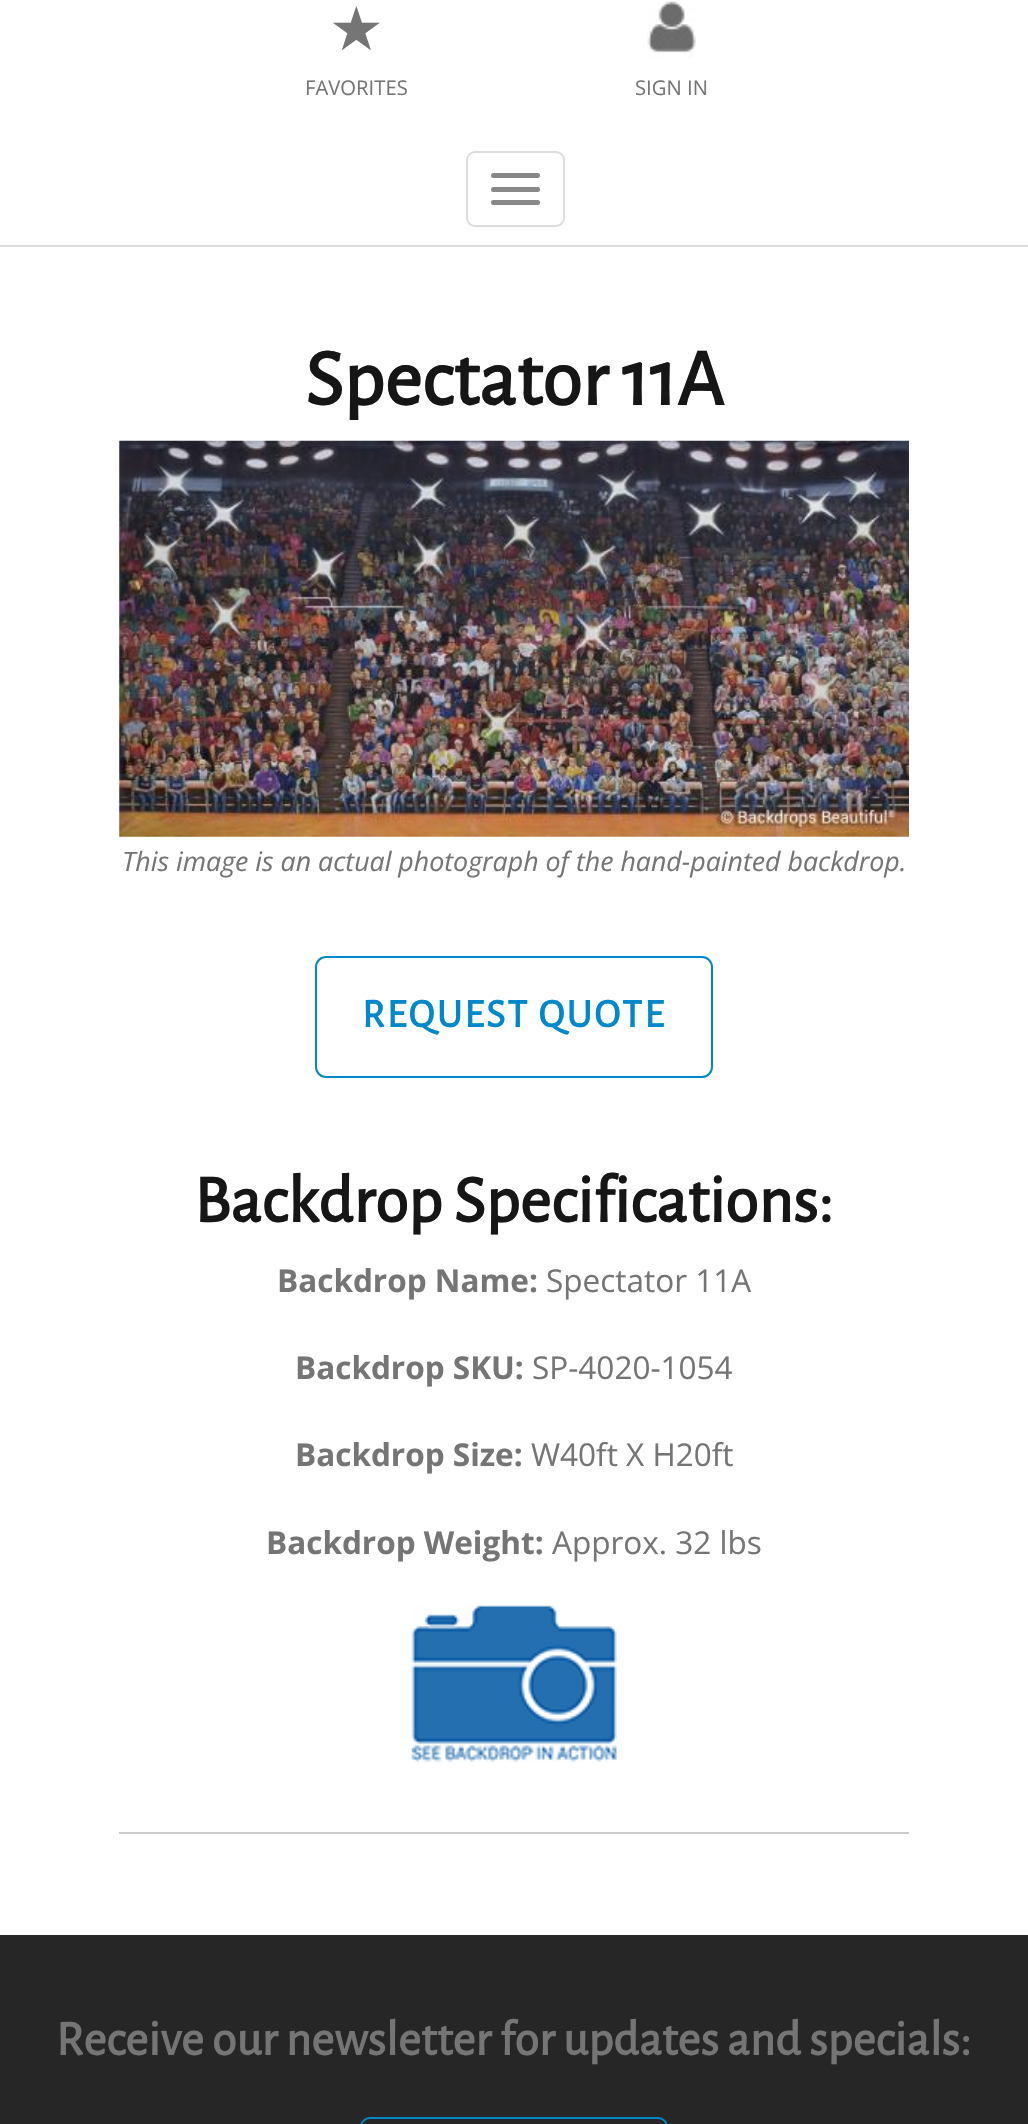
#include "include/core/SkBlurTypes.h"
#include "include/core/SkCanvas.h"
#include "include/core/SkData.h"
#include "include/core/SkFont.h"
#include "include/core/SkFontMgr.h"
#include "include/core/SkImage.h"
#include "include/core/SkMaskFilter.h"
#include "include/core/SkPaint.h"
#include "include/core/SkPathBuilder.h"
#include "include/core/SkTextBlob.h"
#include "include/effects/SkDashPathEffect.h"
#include "include/effects/SkGradientShader.h"
#include "include/utils/SkParsePath.h"

extern sk_sp<SkFontMgr> fontMgr;

static SkFont font(const char* family, int weight, float size, bool italic = false) {
    SkFontStyle style(weight, SkFontStyle::kNormal_Width,
        italic ? SkFontStyle::kItalic_Slant : SkFontStyle::kUpright_Slant);
    SkFont result(fontMgr->matchFamilyStyle(family, style), size);
    result.setSubpixel(true);
    return result;
}

static void drawLabel(SkCanvas* canvas, const char* s, float x, float y, const SkFont& font, SkColor color) {
    SkPaint ink(SkColor4f::FromColor(color));
    ink.setAntiAlias(true);
    canvas->drawString(s, x, y, font, ink);
}

static void drawTracked(SkCanvas* canvas, const char* s, float x, float y, const SkFont& font, const SkPaint& ink, float letter, float word) {
    std::vector<SkGlyphID> glyphs(font.countText(s, strlen(s), SkTextEncoding::kUTF8));
    std::vector<float> xs(glyphs.size());
    font.textToGlyphs(s, strlen(s), SkTextEncoding::kUTF8, glyphs);
    font.getXPos(glyphs, xs, x);
    float extra = 0;
    for (size_t i = 0; i < glyphs.size(); i++) {
        xs[i] += extra;
        extra += letter + word * (glyphs[i] == font.unicharToGlyph(' '));
    }
    canvas->drawTextBlob(SkTextBlob::MakeFromPosHGlyphs(glyphs, xs, y, font), 0, 0, ink);
}

static void fillRect(SkCanvas* canvas, float x, float y, float w, float h, SkColor color) {
    SkPaint ink(SkColor4f::FromColor(color));
    ink.setAntiAlias(true);
    canvas->drawRect(SkRect::MakeXYWH(x, y, w, h), ink);
}

static void fillRRect(SkCanvas* canvas, float x, float y, float w, float h, float radius, SkColor color) {
    SkPaint ink(SkColor4f::FromColor(color));
    ink.setAntiAlias(true);
    canvas->drawRoundRect(SkRect::MakeXYWH(x, y, w, h), radius, radius, ink);
}

static void drawPhoto(SkCanvas* canvas, const char* path, float x, float y, float w, float h) {
    auto image = SkImages::DeferredFromEncodedData(SkData::MakeFromFileName(path));
    canvas->drawImageRect(image, SkRect::MakeXYWH(x, y, w, h), SkSamplingOptions());
}

void draw(SkCanvas* canvas) {
    SkPaint paint;
    paint.setAntiAlias(true);
    canvas->clear(0xFFFFFFFF);
    SkFont font1 = font("DejaVu Sans", 400, 61);
    drawLabel(canvas, "★", 329, 50, font1, 0xFF757575);
    SkFont font2 = font("Open Sans", 400, 20.25f);
    drawLabel(canvas, "FAVORITES", 305, 95, font2, 0xFF757575);
    drawPhoto(canvas, "assets/img1.png", 647, 1, 49, 57);
    drawLabel(canvas, "SIGN IN", 635, 95, font2, 0xFF757575);
    fillRect(canvas, 0, 245, 1028, 2, 0xFFDDDDDD);
    paint.setStroke(true);
    paint.setStrokeWidth(2);
    paint.setColor(0xFFDDDDDD);
    canvas->drawRoundRect(SkRect::MakeXYWH(467, 152, 97, 74), 8, 8, paint);
    fillRRect(canvas, 491, 173, 49, 5, 2.5f, 0xFF888888);
    fillRRect(canvas, 491, 187, 49, 5, 2.5f, 0xFF888888);
    fillRRect(canvas, 491, 200, 49, 5, 2.5f, 0xFF888888);
    SkFont font3 = font("Alegreya Sans", 700, 81);
    drawLabel(canvas, "Spectator 11A", 305, 405, font3, 0xFF161616);
    drawPhoto(canvas, "assets/img2.png", 119, 440, 790, 397);
    SkFont font4 = font("Open Sans", 400, 26.75f, true);
    drawLabel(canvas, "This image is an actual photograph of the hand-painted backdrop.", 122, 871, font4, 0xFF757575);
    paint.setColor(0xFF0088CC);
    canvas->drawRoundRect(SkRect::MakeXYWH(316, 957, 396, 120), 10, 10, paint);
    SkFont font5 = font("Alegreya Sans", 700, 40.5f);
    paint.setStroke(false);
    drawTracked(canvas, "REQUEST QUOTE", 362, 1027, font5, paint, 2.25f, 0);
    SkFont font6 = font("Alegreya Sans", 700, 67.5f);
    drawLabel(canvas, "Backdrop Specifications:", 194, 1222, font6, 0xFF161616);
    SkFont font7 = font("Open Sans", 700, 31.5f);
    drawLabel(canvas, "Backdrop Name:", 277, 1292, font7, 0xFF757575);
    SkFont font8 = font("Open Sans", 400, 31.5f);
    drawLabel(canvas, "Spectator 11A", 546, 1292, font8, 0xFF757575);
    drawLabel(canvas, "Backdrop SKU:", 295, 1379, font7, 0xFF757575);
    drawLabel(canvas, "SP-4020-1054", 532, 1379, font8, 0xFF757575);
    drawLabel(canvas, "Backdrop Size:", 295, 1466, font7, 0xFF757575);
    drawLabel(canvas, "W40ft X H20ft", 531, 1466, font8, 0xFF757575);
    drawLabel(canvas, "Backdrop Weight:", 266, 1554, font7, 0xFF757575);
    drawLabel(canvas, "Approx. 32 lbs", 552, 1554, font8, 0xFF757575);
    drawPhoto(canvas, "assets/img3.png", 411, 1605, 206, 158);
    fillRect(canvas, 119, 1832, 790, 2, 0xFFCCCCCC);
    fillRect(canvas, 0, 1935, 1028, 189, 0xFF262626);
    SkFont font9 = font("Alegreya Sans", 700, 49.5f);
    drawLabel(canvas, "Receive our newsletter for updates and specials:", 56, 2055, font9, 0xFF757575);
    paint.setStroke(true);
    canvas->drawRoundRect(SkRect::MakeXYWH(361, 2118, 306, 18), 10, 10, paint);
}
